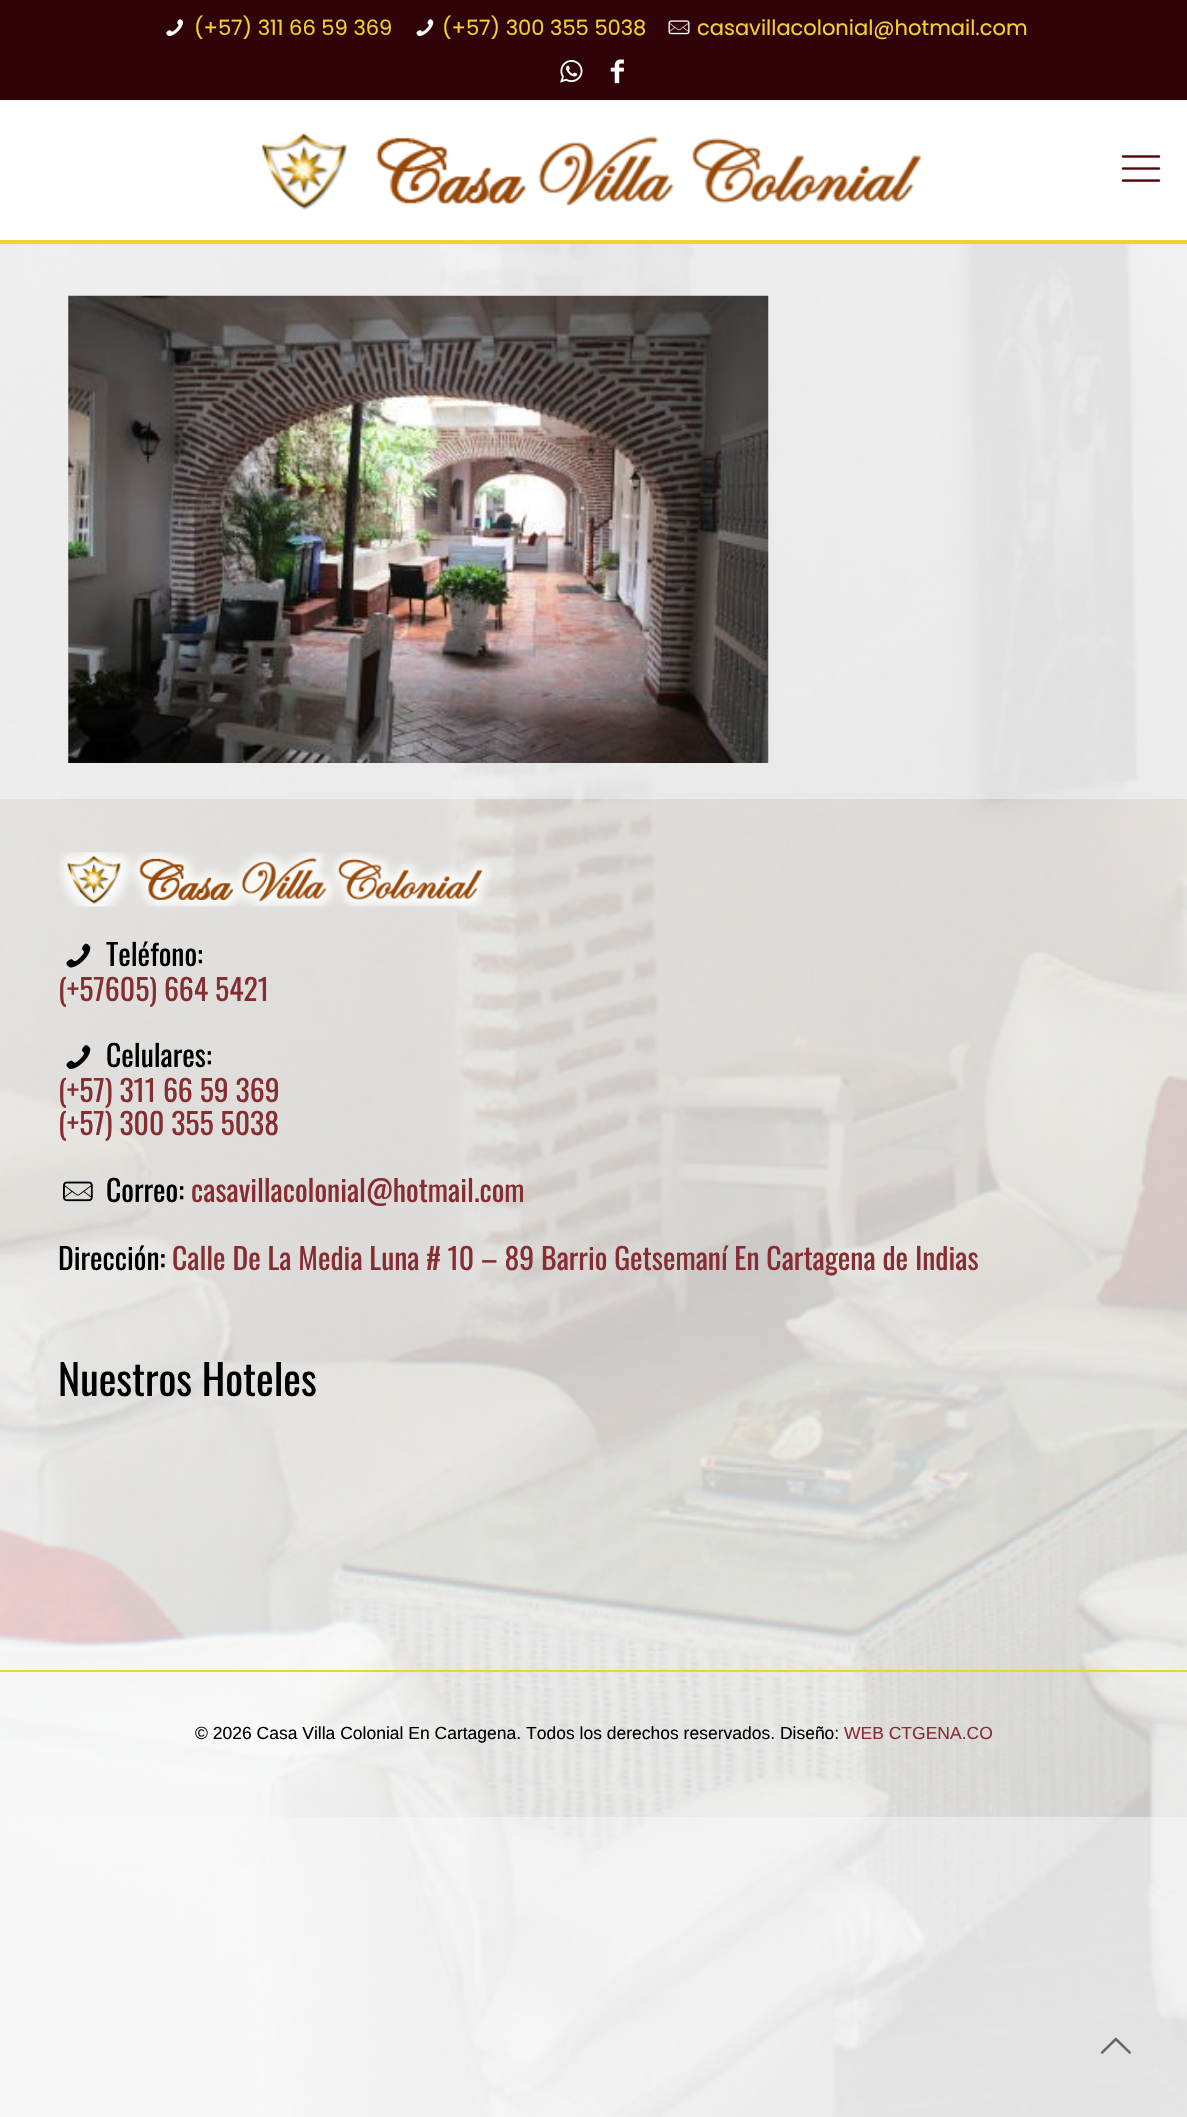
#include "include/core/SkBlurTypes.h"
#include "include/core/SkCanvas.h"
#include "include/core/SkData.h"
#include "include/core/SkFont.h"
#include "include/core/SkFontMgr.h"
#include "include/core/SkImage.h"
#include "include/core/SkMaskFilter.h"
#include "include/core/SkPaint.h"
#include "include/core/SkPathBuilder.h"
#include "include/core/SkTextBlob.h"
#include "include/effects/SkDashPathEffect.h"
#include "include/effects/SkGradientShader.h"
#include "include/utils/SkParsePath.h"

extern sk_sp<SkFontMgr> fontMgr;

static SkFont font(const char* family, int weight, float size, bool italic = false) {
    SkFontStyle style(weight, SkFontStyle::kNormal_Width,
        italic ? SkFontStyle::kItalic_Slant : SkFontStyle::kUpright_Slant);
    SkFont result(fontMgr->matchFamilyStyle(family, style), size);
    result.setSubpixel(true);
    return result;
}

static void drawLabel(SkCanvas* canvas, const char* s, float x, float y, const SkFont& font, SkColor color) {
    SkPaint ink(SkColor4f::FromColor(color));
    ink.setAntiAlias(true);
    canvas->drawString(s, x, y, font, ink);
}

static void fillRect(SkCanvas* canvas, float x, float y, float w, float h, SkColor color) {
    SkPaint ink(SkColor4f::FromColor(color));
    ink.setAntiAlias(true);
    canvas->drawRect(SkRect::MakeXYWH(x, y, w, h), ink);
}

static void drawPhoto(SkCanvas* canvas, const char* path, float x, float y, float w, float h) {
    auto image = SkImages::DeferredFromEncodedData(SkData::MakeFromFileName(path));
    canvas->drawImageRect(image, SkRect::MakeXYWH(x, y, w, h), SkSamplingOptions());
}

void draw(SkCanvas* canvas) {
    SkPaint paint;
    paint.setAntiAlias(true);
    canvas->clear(0xFFFFFFFF);
    drawPhoto(canvas, "assets/img1.png", 0, 244, 1187, 1873);
    fillRect(canvas, 0, 0, 1187, 100, 0xFF2F0307);
    drawPhoto(canvas, "assets/img2.png", 166, 19, 17, 17);
    SkFont font1 = font("Poppins", 400, 21);
    drawLabel(canvas, "(+57) 311 66 59 369", 194, 35, font1, 0xFFF5D033);
    drawPhoto(canvas, "assets/img3.png", 416, 19, 18, 17);
    drawLabel(canvas, "(+57) 300 355 5038", 442, 35, font1, 0xFFF5D033);
    drawPhoto(canvas, "assets/img4.png", 668, 20, 22, 15);
    drawLabel(canvas, "casavillacolonial@hotmail.com", 697, 35, font1, 0xFFF5D033);
    drawPhoto(canvas, "assets/img5.png", 560, 60, 23, 23);
    drawPhoto(canvas, "assets/img6.png", 610, 59, 14, 25);
    fillRect(canvas, 0, 240, 1187, 4, 0xFFF5D033);
    drawPhoto(canvas, "assets/img7.png", 262, 132, 659, 79);
    drawPhoto(canvas, "assets/img8.png", 1121, 155, 40, 27);
    drawPhoto(canvas, "assets/img9.png", 68, 295, 701, 468);
    drawPhoto(canvas, "assets/img10.png", 0, 799, 1187, 1018);
    drawPhoto(canvas, "assets/img11.png", 58, 852, 435, 55);
    drawPhoto(canvas, "assets/img12.png", 66, 943, 25, 25);
    SkFont font2 = font("Oswald", 400, 29.75f);
    drawLabel(canvas, "Teléfono:", 106, 966, font2, 0xFF000000);
    drawLabel(canvas, "(+57605) 664 5421", 58, 1001, font2, 0xFF862D32);
    drawPhoto(canvas, "assets/img13.png", 66, 1045, 25, 24);
    drawLabel(canvas, "Celulares:", 106, 1067, font2, 0xFF000000);
    drawLabel(canvas, "(+57) 311 66 59 369", 58, 1102, font2, 0xFF862D32);
    drawLabel(canvas, "(+57) 300 355 5038", 58, 1135, font2, 0xFF862D32);
    drawPhoto(canvas, "assets/img14.png", 63, 1181, 30, 21);
    drawLabel(canvas, "Correo:", 106, 1202, font2, 0xFF000000);
    drawLabel(canvas, "casavillacolonial@hotmail.com", 191, 1202, font2, 0xFF862D32);
    drawLabel(canvas, "Dirección:", 58, 1270, font2, 0xFF000000);
    drawLabel(canvas, "Calle De La Media Luna # 10 – 89 Barrio Getsemaní En Cartagena de Indias", 172, 1270, font2, 0xFF862D32);
    SkFont font3 = font("Oswald", 400, 42);
    drawLabel(canvas, "Nuestros Hoteles", 58, 1396, font3, 0xFF000000);
    fillRect(canvas, 0, 1670, 1187, 2, 0xFFF5D033);
    SkFont font4 = font("Liberation Sans", 400, 17.5f);
    drawLabel(canvas, "© 2026 Casa Villa Colonial En Cartagena. Todos los derechos reservados. Diseño:", 195, 1739, font4, 0xFF000000);
    drawLabel(canvas, "WEB CTGENA.CO", 844, 1739, font4, 0xFF862D32);
    drawPhoto(canvas, "assets/img15.png", 1100, 2037, 31, 17);
}
